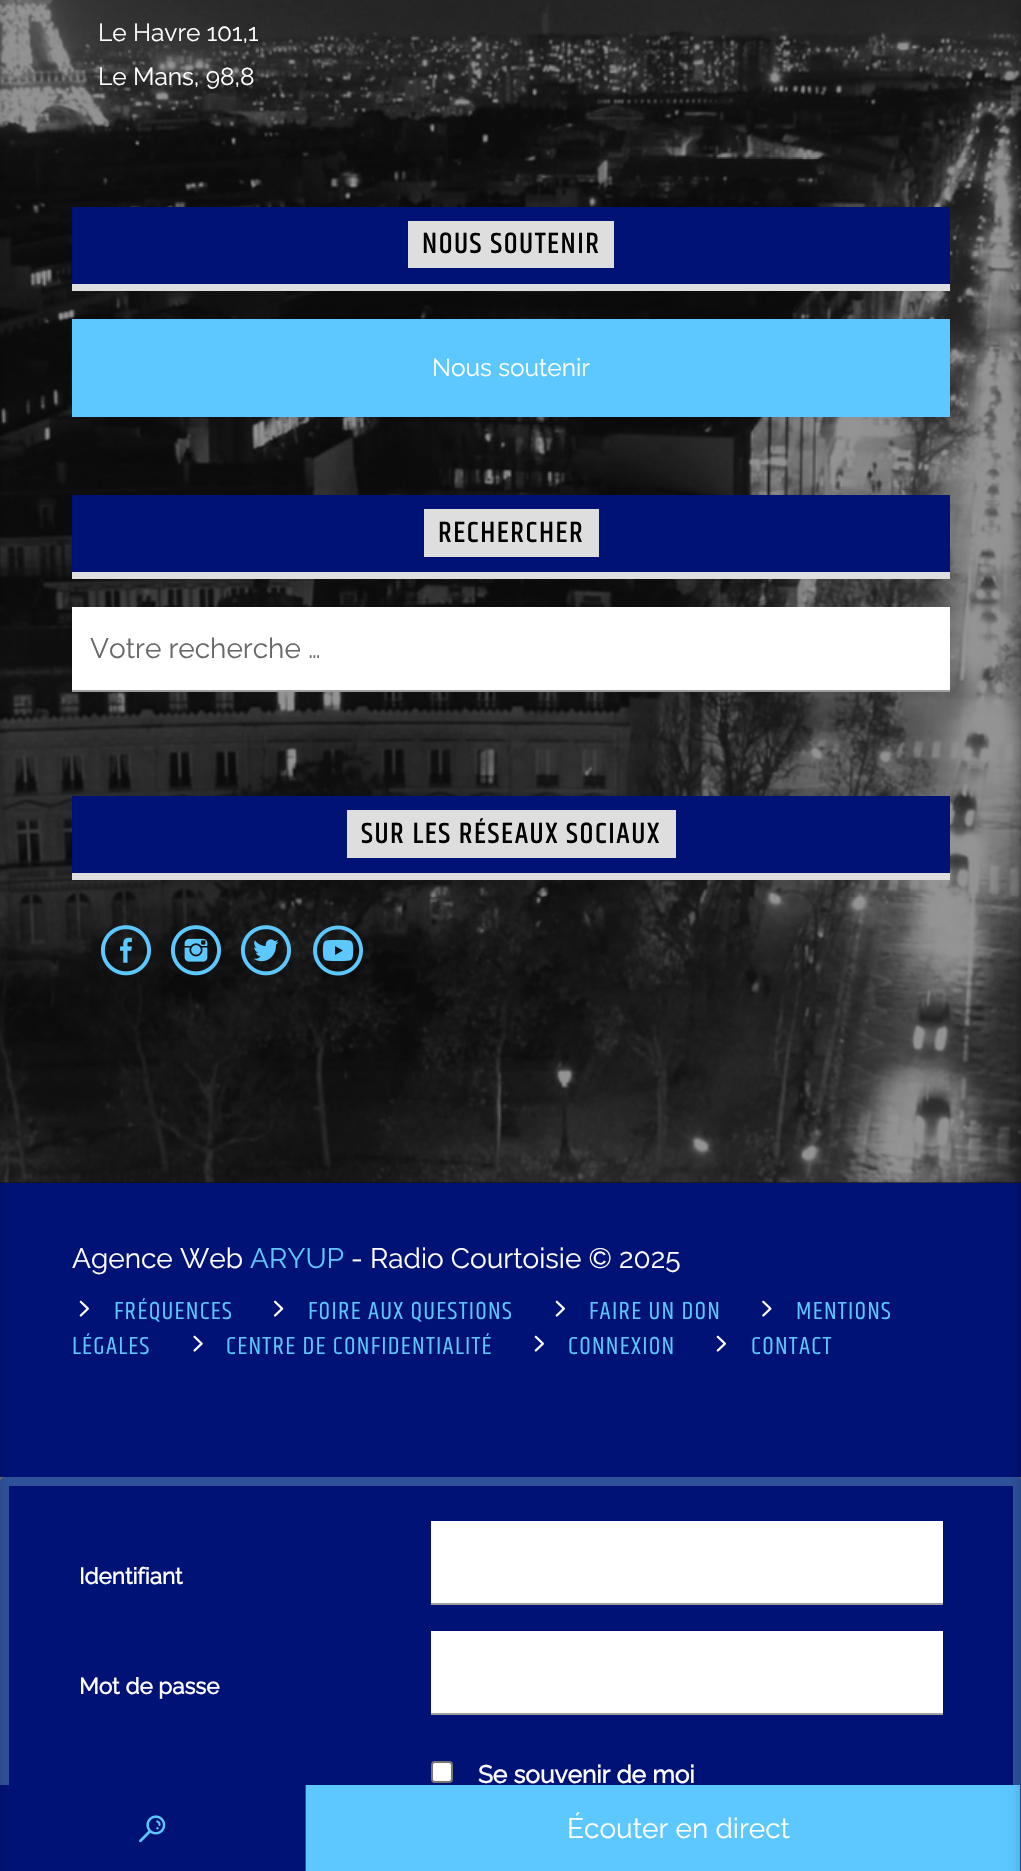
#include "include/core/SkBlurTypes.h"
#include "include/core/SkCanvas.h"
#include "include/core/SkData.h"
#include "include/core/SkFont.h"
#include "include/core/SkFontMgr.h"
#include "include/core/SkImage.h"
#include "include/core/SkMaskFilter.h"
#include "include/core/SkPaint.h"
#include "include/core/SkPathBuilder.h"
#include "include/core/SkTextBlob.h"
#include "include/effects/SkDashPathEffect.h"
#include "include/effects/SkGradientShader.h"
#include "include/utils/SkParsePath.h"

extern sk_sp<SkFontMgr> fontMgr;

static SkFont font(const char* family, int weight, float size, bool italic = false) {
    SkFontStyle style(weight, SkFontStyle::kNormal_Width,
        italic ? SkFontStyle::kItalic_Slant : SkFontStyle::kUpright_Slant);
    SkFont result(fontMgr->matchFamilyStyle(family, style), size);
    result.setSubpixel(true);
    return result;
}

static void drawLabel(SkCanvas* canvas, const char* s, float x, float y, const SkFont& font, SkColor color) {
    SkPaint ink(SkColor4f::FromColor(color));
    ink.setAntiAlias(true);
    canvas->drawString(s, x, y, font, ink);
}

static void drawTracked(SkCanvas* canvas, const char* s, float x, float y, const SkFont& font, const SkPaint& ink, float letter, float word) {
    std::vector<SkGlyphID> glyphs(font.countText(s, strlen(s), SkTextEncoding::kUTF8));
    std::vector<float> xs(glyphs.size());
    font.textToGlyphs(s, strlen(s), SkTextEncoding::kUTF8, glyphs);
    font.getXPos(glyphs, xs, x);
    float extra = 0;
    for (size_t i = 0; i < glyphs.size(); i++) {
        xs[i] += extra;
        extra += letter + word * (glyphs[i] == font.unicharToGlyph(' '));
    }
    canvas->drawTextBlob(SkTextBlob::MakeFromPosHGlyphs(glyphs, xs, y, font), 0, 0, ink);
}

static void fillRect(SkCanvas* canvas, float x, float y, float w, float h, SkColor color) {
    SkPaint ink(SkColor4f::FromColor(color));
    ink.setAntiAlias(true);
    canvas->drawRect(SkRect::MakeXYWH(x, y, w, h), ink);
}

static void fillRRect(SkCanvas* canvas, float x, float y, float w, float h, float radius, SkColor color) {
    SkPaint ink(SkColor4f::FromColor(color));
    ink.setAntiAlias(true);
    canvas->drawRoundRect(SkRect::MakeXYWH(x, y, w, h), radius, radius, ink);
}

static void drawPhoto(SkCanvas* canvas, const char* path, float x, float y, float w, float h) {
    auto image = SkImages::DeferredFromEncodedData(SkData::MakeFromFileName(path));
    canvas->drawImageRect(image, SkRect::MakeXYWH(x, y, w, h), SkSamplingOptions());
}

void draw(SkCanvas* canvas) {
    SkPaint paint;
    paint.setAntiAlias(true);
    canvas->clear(0xFF6F6F6F);
    fillRect(canvas, 0, 0, 1021, 1183, 0xFF101010);
    drawPhoto(canvas, "assets/img1.png", 0, 0, 1021, 1183);
    fillRect(canvas, 0, 1183, 1021, 294, 0xFF001275);
    fillRRect(canvas, 0, 1477, 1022, 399, 5, 0xFF2E5199);
    fillRect(canvas, 9, 1486, 1004, 299, 0xFF001275);
    fillRect(canvas, 0, 1785, 305, 86, 0xFF001275);
    paint.setColor(0x29000000);
    paint.setMaskFilter(SkMaskFilter::MakeBlur(kNormal_SkBlurStyle, 4.5f));
    canvas->drawRect(SkRect::MakeXYWH(-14, 4, 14, 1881), paint);
    paint.setMaskFilter(nullptr);
    SkFont font1 = font("Raleway", 100, 24.5f);
    drawLabel(canvas, "Le Havre 101,1", 98, 41, font1, 0xFFFFFFFF);
    drawLabel(canvas, "Le Mans, 98,8", 98, 85, font1, 0xFFFFFFFF);
    fillRect(canvas, 72, 207, 878, 77, 0xFF001275);
    fillRect(canvas, 72, 284, 878, 7, 0xFFDEDEDE);
    fillRect(canvas, 408, 221, 206, 47, 0xFFDEDEDE);
    SkFont font2 = font("Khand", 500, 29.75f);
    paint.setColor(0xFF000000);
    drawTracked(canvas, "NOUS SOUTENIR", 422, 253, font2, paint, 1.5f, 0);
    fillRect(canvas, 72, 319, 878, 98, 0xFF5CC8FF);
    drawLabel(canvas, "Nous soutenir", 432, 376, font1, 0xFFFFFFFF);
    fillRect(canvas, 72, 495, 878, 77, 0xFF001275);
    fillRect(canvas, 72, 572, 878, 7, 0xFFDEDEDE);
    fillRect(canvas, 424, 509, 175, 48, 0xFFDEDEDE);
    drawTracked(canvas, "RECHERCHER", 438, 542, font2, paint, 1.5f, 0);
    fillRect(canvas, 72, 607, 878, 83, 0xFFFFFFFF);
    fillRect(canvas, 72, 690, 878, 2, 0xFF9E9E9E);
    SkFont font3 = font("Raleway", 100, 28);
    drawLabel(canvas, "Votre recherche …", 90, 658, font3, 0xFF686868);
    fillRect(canvas, 72, 796, 878, 77, 0xFF001275);
    fillRect(canvas, 72, 873, 878, 7, 0xFFDEDEDE);
    fillRect(canvas, 347, 810, 329, 48, 0xFFDEDEDE);
    drawTracked(canvas, "SUR LES RÉSEAUX SOCIAUX", 361, 843, font2, paint, 1.5f, 0);
    drawPhoto(canvas, "assets/img2.png", 100, 925, 51, 51);
    drawPhoto(canvas, "assets/img3.png", 170, 925, 51, 51);
    drawPhoto(canvas, "assets/img4.png", 240, 925, 51, 51);
    drawPhoto(canvas, "assets/img5.png", 313, 925, 50, 51);
    drawLabel(canvas, "Agence Web", 72, 1268, font3, 0xFFFFFFFF);
    drawLabel(canvas, "ARYUP", 250, 1268, font3, 0xFF5CC8FF);
    drawLabel(canvas, "- Radio Courtoisie © 2025", 351, 1268, font3, 0xFFFFFFFF);
    drawPhoto(canvas, "assets/img6.png", 79, 1300, 10, 17);
    SkFont font4 = font("Khand", 400, 25.25f);
    paint.setColor(0xFF5CC8FF);
    drawTracked(canvas, "FRÉQUENCES", 114, 1319, font4, paint, 1.25f, 0);
    drawPhoto(canvas, "assets/img7.png", 273, 1300, 11, 17);
    drawTracked(canvas, "FOIRE AUX QUESTIONS", 308, 1319, font4, paint, 1.25f, 0);
    drawPhoto(canvas, "assets/img6.png", 555, 1300, 10, 17);
    drawTracked(canvas, "FAIRE UN DON", 589, 1319, font4, paint, 1.25f, 0);
    drawPhoto(canvas, "assets/img8.png", 762, 1300, 10, 17);
    drawTracked(canvas, "MENTIONS", 796, 1319, font4, paint, 1.25f, 0);
    drawTracked(canvas, "LÉGALES", 72, 1354, font4, paint, 1.25f, 0);
    drawPhoto(canvas, "assets/img9.png", 193, 1335, 10, 17);
    drawTracked(canvas, "CENTRE DE CONFIDENTIALITÉ", 226, 1354, font4, paint, 1.25f, 0);
    drawPhoto(canvas, "assets/img6.png", 534, 1335, 10, 17);
    drawTracked(canvas, "CONNEXION", 568, 1354, font4, paint, 1.25f, 0);
    drawPhoto(canvas, "assets/img6.png", 716, 1335, 10, 17);
    drawTracked(canvas, "CONTACT", 751, 1354, font4, paint, 1.25f, 0);
    fillRect(canvas, 1020, 1785, 1, 86, 0xFF3C498E);
    fillRect(canvas, 306, 1785, 714, 86, 0xFF5CC8FF);
    paint.setColor(0x1F000000);
    paint.setMaskFilter(SkMaskFilter::MakeBlur(kNormal_SkBlurStyle, 9));
    canvas->drawRect(SkRect::MakeXYWH(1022, 4, 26, 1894), paint);
    paint.setMaskFilter(nullptr);
    paint.setColor(0x29000000);
    paint.setMaskFilter(SkMaskFilter::MakeBlur(kNormal_SkBlurStyle, 4.5f));
    canvas->drawRect(SkRect::MakeXYWH(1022, 4, 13, 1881), paint);
    paint.setMaskFilter(nullptr);
    SkFont font5 = font("Raleway", 700, 22.5f);
    drawLabel(canvas, "Identifiant", 79, 1584, font5, 0xFFFFFFFF);
    fillRect(canvas, 431, 1521, 512, 82, 0xFFFFFFFF);
    fillRect(canvas, 431, 1603, 512, 2, 0xFF9E9E9E);
    drawLabel(canvas, "Mot de passe", 79, 1694, font5, 0xFFFFFFFF);
    fillRect(canvas, 431, 1631, 512, 82, 0xFFFFFFFF);
    fillRect(canvas, 431, 1713, 512, 2, 0xFF9E9E9E);
    paint.setColor(0xFFFFFFFF);
    canvas->drawRoundRect(SkRect::MakeXYWH(432, 1762, 20, 20), 3, 3, paint);
    paint.setStroke(true);
    paint.setStrokeWidth(2);
    paint.setColor(0xFF767676);
    canvas->drawRoundRect(SkRect::MakeXYWH(432, 1762, 20, 20), 3, 3, paint);
    SkFont font6 = font("Raleway", 700, 24.5f);
    drawLabel(canvas, "Se souvenir de moi", 478, 1783, font6, 0xFFFFFFFF);
    fillRect(canvas, 305, 1785, 1, 86, 0xFF3C498E);
    drawPhoto(canvas, "assets/img10.png", 139, 1815, 27, 28);
    drawLabel(canvas, "Écouter en direct", 567, 1838, font3, 0xFFFFFFFF);
}
